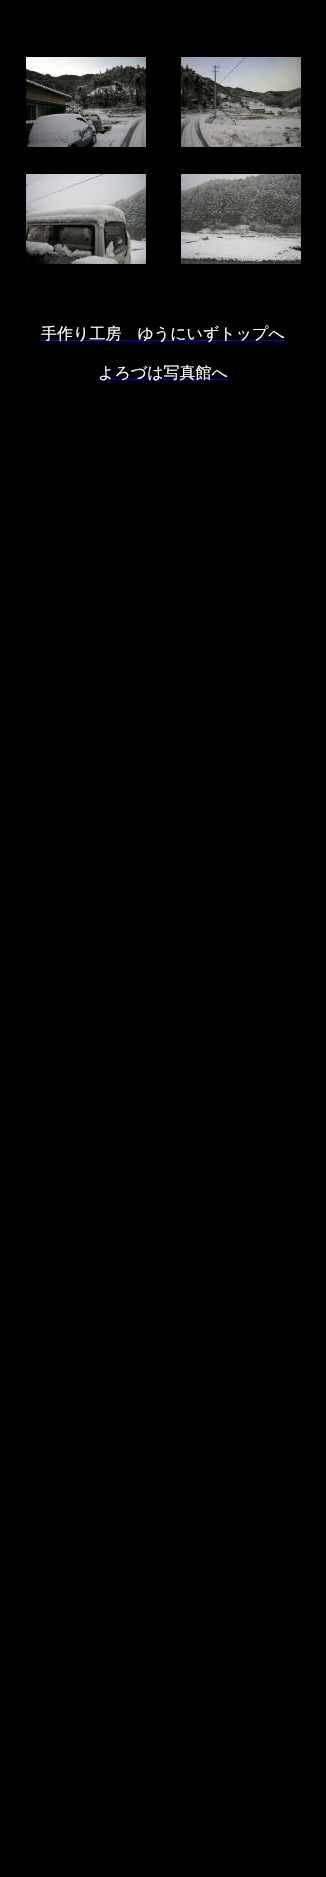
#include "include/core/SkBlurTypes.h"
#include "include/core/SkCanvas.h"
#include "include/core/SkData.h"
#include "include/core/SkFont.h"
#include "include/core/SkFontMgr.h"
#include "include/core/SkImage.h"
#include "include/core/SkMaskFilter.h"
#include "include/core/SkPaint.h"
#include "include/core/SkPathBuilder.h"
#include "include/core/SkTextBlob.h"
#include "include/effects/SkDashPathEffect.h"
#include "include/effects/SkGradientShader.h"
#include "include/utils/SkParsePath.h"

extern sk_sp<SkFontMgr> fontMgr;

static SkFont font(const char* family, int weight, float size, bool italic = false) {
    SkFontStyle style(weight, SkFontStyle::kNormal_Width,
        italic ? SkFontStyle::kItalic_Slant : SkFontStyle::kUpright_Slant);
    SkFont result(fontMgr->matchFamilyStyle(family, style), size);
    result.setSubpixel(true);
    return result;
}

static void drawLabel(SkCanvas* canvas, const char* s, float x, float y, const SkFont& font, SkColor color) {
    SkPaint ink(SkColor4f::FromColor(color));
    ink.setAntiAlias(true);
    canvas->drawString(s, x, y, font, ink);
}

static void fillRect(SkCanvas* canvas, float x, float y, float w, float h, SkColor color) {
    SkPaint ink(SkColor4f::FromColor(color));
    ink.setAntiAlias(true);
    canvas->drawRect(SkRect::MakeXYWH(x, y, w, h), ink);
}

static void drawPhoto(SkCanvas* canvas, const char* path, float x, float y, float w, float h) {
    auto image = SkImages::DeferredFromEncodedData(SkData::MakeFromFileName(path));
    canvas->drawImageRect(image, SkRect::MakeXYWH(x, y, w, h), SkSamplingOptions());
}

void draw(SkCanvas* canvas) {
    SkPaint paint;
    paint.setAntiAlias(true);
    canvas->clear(0xFF000000);
    drawPhoto(canvas, "assets/img1.png", 26, 57, 120, 90);
    drawPhoto(canvas, "assets/img2.png", 181, 57, 120, 90);
    drawPhoto(canvas, "assets/img3.png", 26, 174, 120, 90);
    drawPhoto(canvas, "assets/img4.png", 181, 174, 120, 90);
    fillRect(canvas, 41, 340, 244, 1, 0xFF0000EE);
    SkFont font1 = font("WenQuanYi Zen Hei", 500, 16);
    drawLabel(canvas, "手作り工房　ゆうにいずトップへ", 41, 339, font1, 0xFFFFFFFF);
    fillRect(canvas, 98, 379, 130, 1, 0xFF0000EE);
    drawLabel(canvas, "よろづは写真館へ", 98, 378, font1, 0xFFFFFFFF);
}
